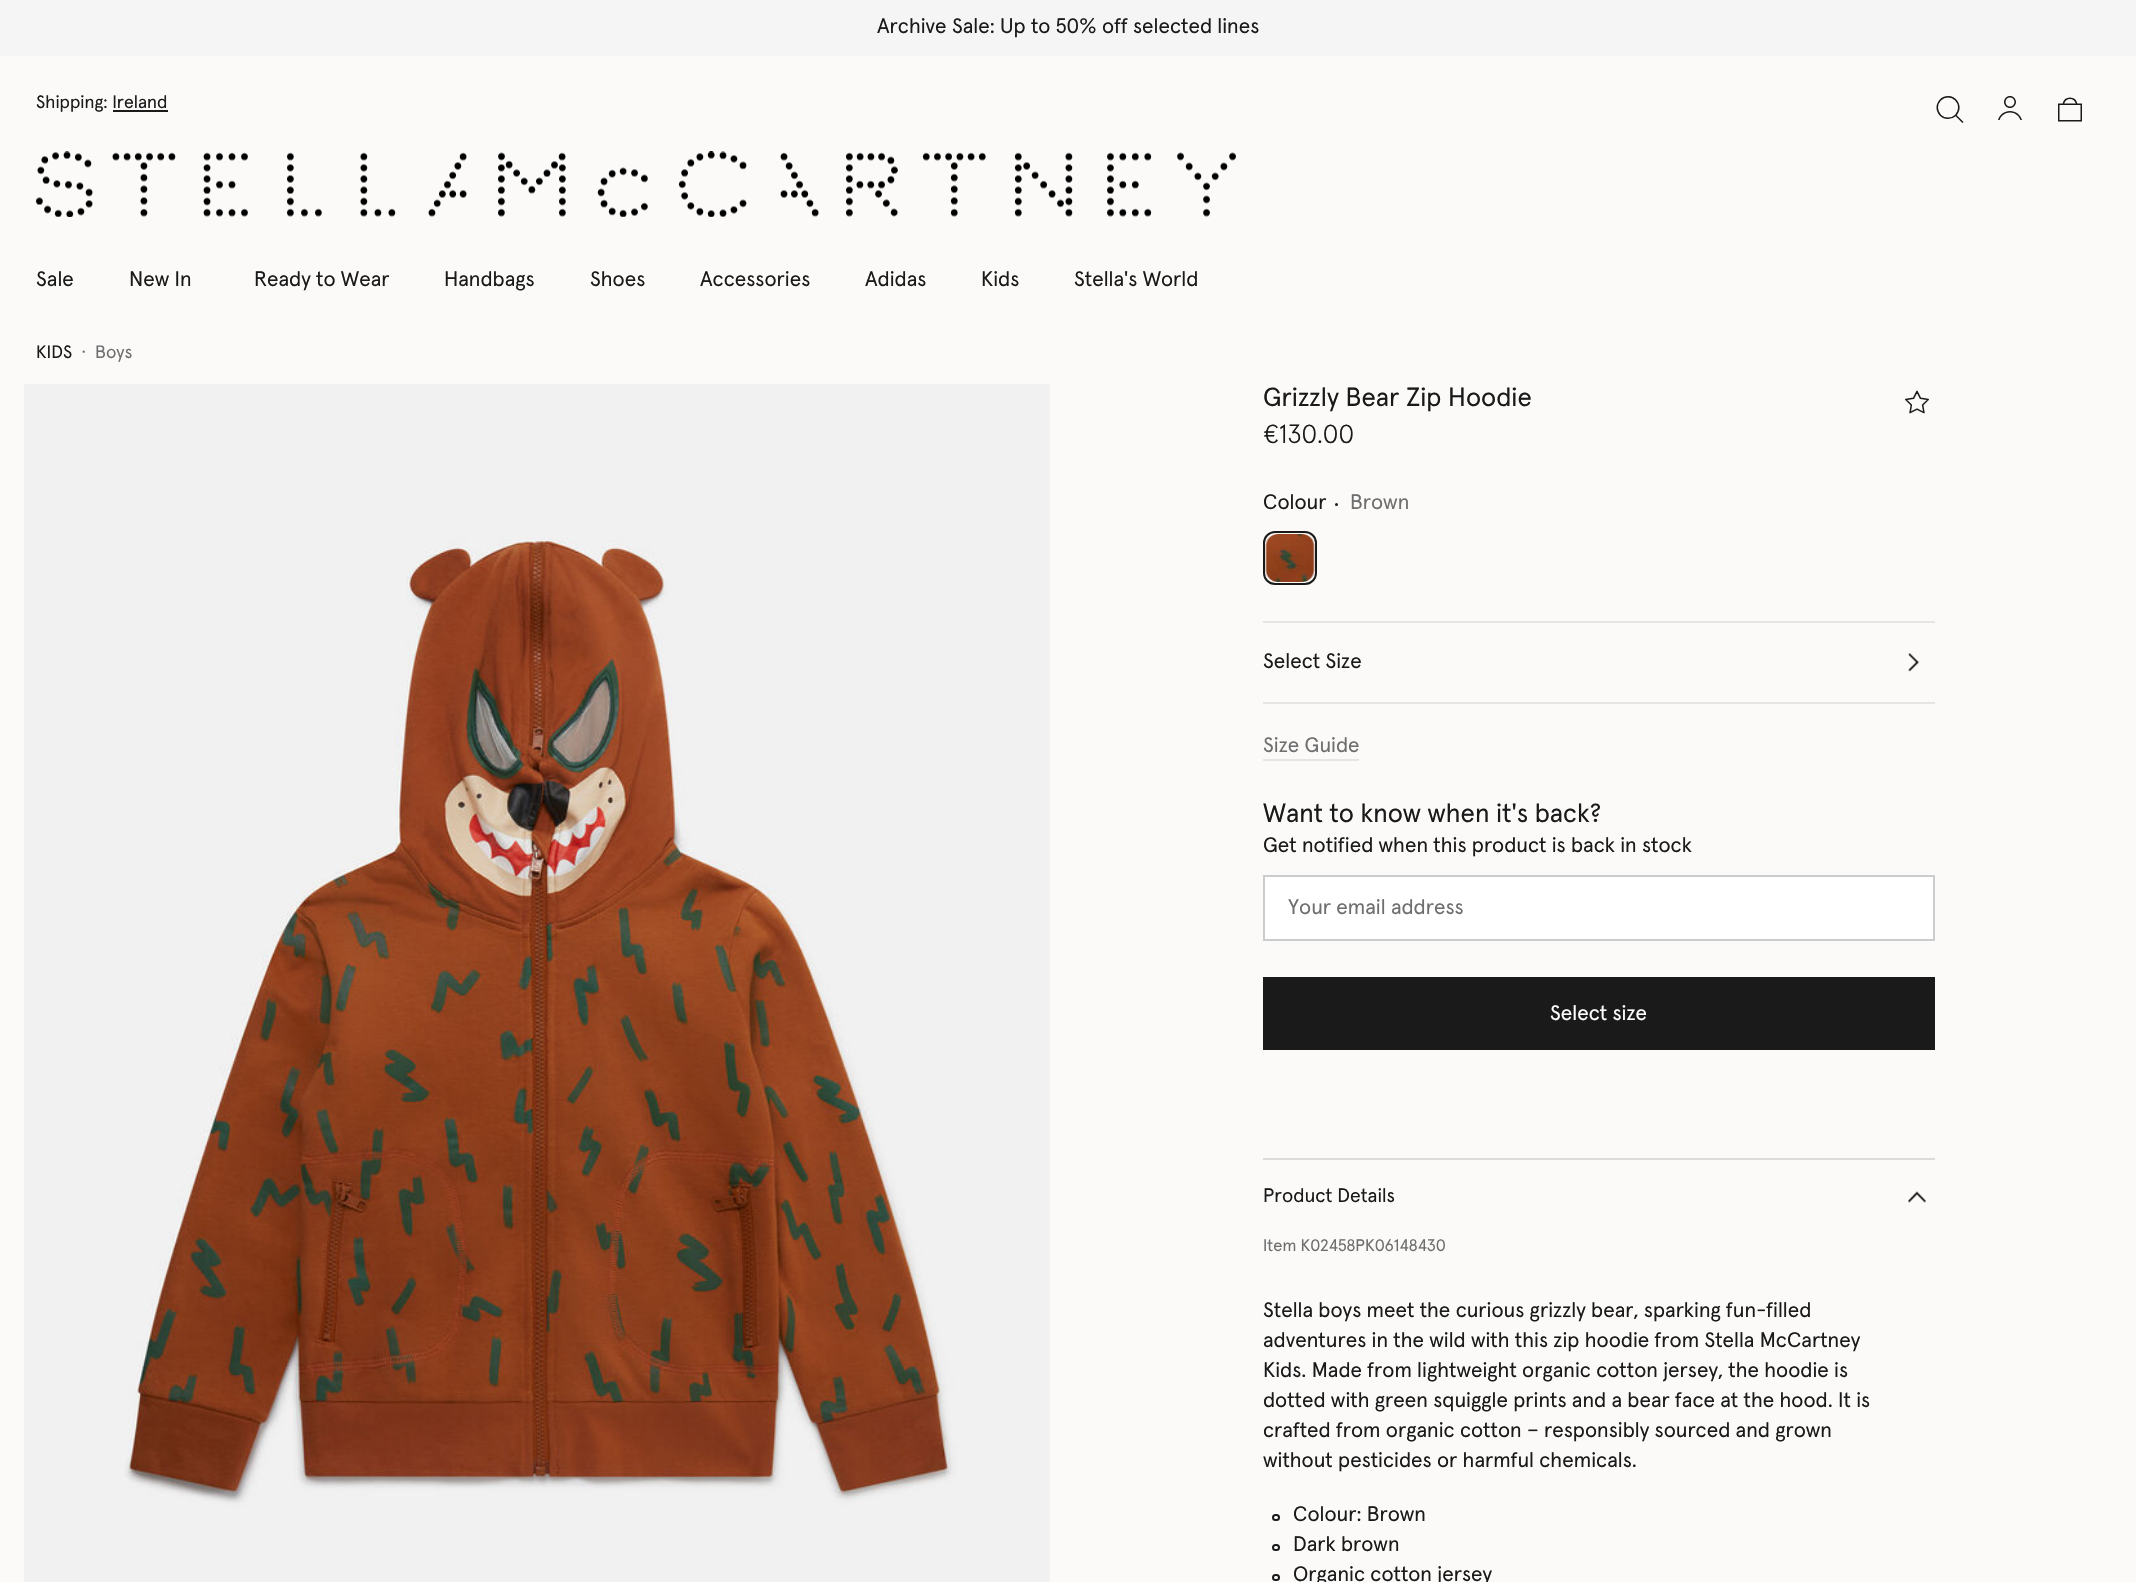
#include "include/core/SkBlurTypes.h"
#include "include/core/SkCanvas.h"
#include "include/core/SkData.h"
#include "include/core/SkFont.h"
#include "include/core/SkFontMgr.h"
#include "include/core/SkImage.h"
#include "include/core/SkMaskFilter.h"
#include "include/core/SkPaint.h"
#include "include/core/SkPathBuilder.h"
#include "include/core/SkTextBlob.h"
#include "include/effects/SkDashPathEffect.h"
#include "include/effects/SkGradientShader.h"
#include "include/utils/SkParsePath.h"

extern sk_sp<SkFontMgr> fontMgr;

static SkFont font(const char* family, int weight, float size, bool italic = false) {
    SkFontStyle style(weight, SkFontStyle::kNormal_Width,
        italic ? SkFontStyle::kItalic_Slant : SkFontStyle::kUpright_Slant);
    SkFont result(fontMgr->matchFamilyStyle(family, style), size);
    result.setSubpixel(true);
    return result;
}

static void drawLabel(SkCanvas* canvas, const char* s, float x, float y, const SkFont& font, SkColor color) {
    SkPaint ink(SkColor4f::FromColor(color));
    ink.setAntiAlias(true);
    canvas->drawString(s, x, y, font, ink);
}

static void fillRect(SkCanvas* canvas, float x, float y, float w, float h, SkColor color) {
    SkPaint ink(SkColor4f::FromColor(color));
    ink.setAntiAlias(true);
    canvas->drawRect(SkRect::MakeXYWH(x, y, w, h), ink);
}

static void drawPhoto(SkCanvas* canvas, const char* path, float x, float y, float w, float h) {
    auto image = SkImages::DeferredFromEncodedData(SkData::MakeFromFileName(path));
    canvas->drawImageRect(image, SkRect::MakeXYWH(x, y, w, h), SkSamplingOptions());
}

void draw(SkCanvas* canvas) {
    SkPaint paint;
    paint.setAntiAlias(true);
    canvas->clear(0xFFFBFAF9);
    fillRect(canvas, 0, 0, 2136, 56, 0xFFF5F5F5);
    SkFont font1 = font("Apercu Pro", 400, 21);
    drawLabel(canvas, "Archive Sale: Up to 50% off selected lines", 877, 33, font1, 0xFF1A1A1A);
    SkFont font2 = font("Apercu Pro", 400, 18);
    drawLabel(canvas, "Shipping: Ireland", 36, 108, font2, 0xFF1A1A1A);
    fillRect(canvas, 113, 110, 55, 2, 0xFF1A1A1A);
    drawPhoto(canvas, "assets/img1.png", 1936, 96, 28, 27);
    drawPhoto(canvas, "assets/img2.png", 1998, 96, 24, 24);
    drawPhoto(canvas, "assets/img3.png", 2058, 97, 24, 25);
    drawPhoto(canvas, "assets/img4.png", 36, 151, 1200, 66);
    drawLabel(canvas, "Sale", 36, 286, font1, 0xFF1A1A1A);
    drawLabel(canvas, "New In", 129, 286, font1, 0xFF1A1A1A);
    drawLabel(canvas, "Ready to Wear", 254, 286, font1, 0xFF1A1A1A);
    drawLabel(canvas, "Handbags", 444, 286, font1, 0xFF1A1A1A);
    drawLabel(canvas, "Shoes", 590, 286, font1, 0xFF1A1A1A);
    drawLabel(canvas, "Accessories", 700, 286, font1, 0xFF1A1A1A);
    drawLabel(canvas, "Adidas", 865, 286, font1, 0xFF1A1A1A);
    drawLabel(canvas, "Kids", 981, 286, font1, 0xFF1A1A1A);
    drawLabel(canvas, "Stella's World", 1074, 286, font1, 0xFF1A1A1A);
    drawLabel(canvas, "KIDS", 36, 358, font2, 0xFF1A1A1A);
    drawLabel(canvas, "·", 81, 358, font2, 0xFF6E6E6E);
    drawLabel(canvas, "Boys", 95, 358, font2, 0xFF6E6E6E);
    drawPhoto(canvas, "assets/img5.png", 24, 384, 1026, 1198);
    SkFont font3 = font("Apercu Pro", 400, 26.25f);
    drawLabel(canvas, "Grizzly Bear Zip Hoodie", 1263, 406, font3, 0xFF1A1A1A);
    drawPhoto(canvas, "assets/img6.png", 1905, 390, 24, 24);
    SkFont font4 = font("Apercu Pro", 300, 26.25f);
    drawLabel(canvas, "€130.00", 1263, 443, font4, 0xFF1A1A1A);
    drawLabel(canvas, "Colour", 1263, 509, font1, 0xFF1A1A1A);
    paint.setColor(0xFF1A1A1A);
    canvas->drawCircle(1336.5f, 504.5f, 1.5f, paint);
    drawLabel(canvas, "Brown", 1350, 509, font1, 0xFF6E6E6E);
    paint.setStroke(true);
    paint.setStrokeWidth(2);
    canvas->drawRoundRect(SkRect::MakeXYWH(1264, 532, 52, 52), 11, 11, paint);
    drawPhoto(canvas, "assets/img7.png", 1265, 534, 50, 48);
    fillRect(canvas, 1263, 621, 672, 2, 0xFFE5E5E5);
    fillRect(canvas, 1263, 702, 672, 2, 0xFFE5E5E5);
    drawLabel(canvas, "Select Size", 1263, 668, font1, 0xFF1A1A1A);
    drawPhoto(canvas, "assets/img8.png", 1908, 653, 11, 19);
    drawLabel(canvas, "Size Guide", 1263, 752, font1, 0xFF6E6E6E);
    fillRect(canvas, 1263, 759, 96, 2, 0xFFE5E5E5);
    drawLabel(canvas, "Want to know when it's back?", 1263, 822, font3, 0xFF1A1A1A);
    drawLabel(canvas, "Get notified when this product is back in stock", 1263, 852, font1, 0xFF1A1A1A);
    paint.setStroke(false);
    paint.setColor(0xFFFFFFFF);
    canvas->drawRect(SkRect::MakeXYWH(1264, 876, 670, 64), paint);
    paint.setStroke(true);
    paint.setColor(0xFFCCCCCC);
    canvas->drawRect(SkRect::MakeXYWH(1264, 876, 670, 64), paint);
    drawLabel(canvas, "Your email address", 1288, 914, font1, 0xFF6E6E6E);
    fillRect(canvas, 1263, 977, 672, 73, 0xFF1A1A1A);
    drawLabel(canvas, "Select size", 1550, 1020, font1, 0xFFFFFFFF);
    fillRect(canvas, 1263, 1158, 672, 2, 0xFFDCDBDA);
    SkFont font5 = font("Apercu Pro", 400, 19.5f);
    drawLabel(canvas, "Product Details", 1263, 1202, font5, 0xFF1A1A1A);
    drawPhoto(canvas, "assets/img9.png", 1908, 1191, 18, 12);
    SkFont font6 = font("Apercu Pro", 400, 16.75f);
    drawLabel(canvas, "Item K02458PK06148430", 1263, 1251, font6, 0xFF6E6E6E);
    drawLabel(canvas, "Stella boys meet the curious grizzly bear, sparking fun-filled", 1263, 1317, font1, 0xFF1A1A1A);
    drawLabel(canvas, "adventures in the wild with this zip hoodie from Stella McCartney", 1263, 1347, font1, 0xFF1A1A1A);
    drawLabel(canvas, "Kids. Made from lightweight organic cotton jersey, the hoodie is", 1263, 1377, font1, 0xFF1A1A1A);
    drawLabel(canvas, "dotted with green squiggle prints and a bear face at the hood. It is", 1263, 1407, font1, 0xFF1A1A1A);
    drawLabel(canvas, "crafted from organic cotton – responsibly sourced and grown", 1263, 1437, font1, 0xFF1A1A1A);
    drawLabel(canvas, "without pesticides or harmful chemicals.", 1263, 1467, font1, 0xFF1A1A1A);
    paint.setColor(0xFF1A1A1A);
    canvas->drawRoundRect(SkRect::MakeXYWH(1273, 1515, 6, 5), 2.5f, 2.5f, paint);
    drawLabel(canvas, "Colour: Brown", 1293, 1521, font1, 0xFF1A1A1A);
    canvas->drawRoundRect(SkRect::MakeXYWH(1273, 1545, 6, 5), 2.5f, 2.5f, paint);
    drawLabel(canvas, "Dark brown", 1293, 1551, font1, 0xFF1A1A1A);
    canvas->drawRoundRect(SkRect::MakeXYWH(1273, 1575, 6, 5), 2.5f, 2.5f, paint);
    drawLabel(canvas, "Organic cotton jersey", 1293, 1581, font1, 0xFF1A1A1A);
}
